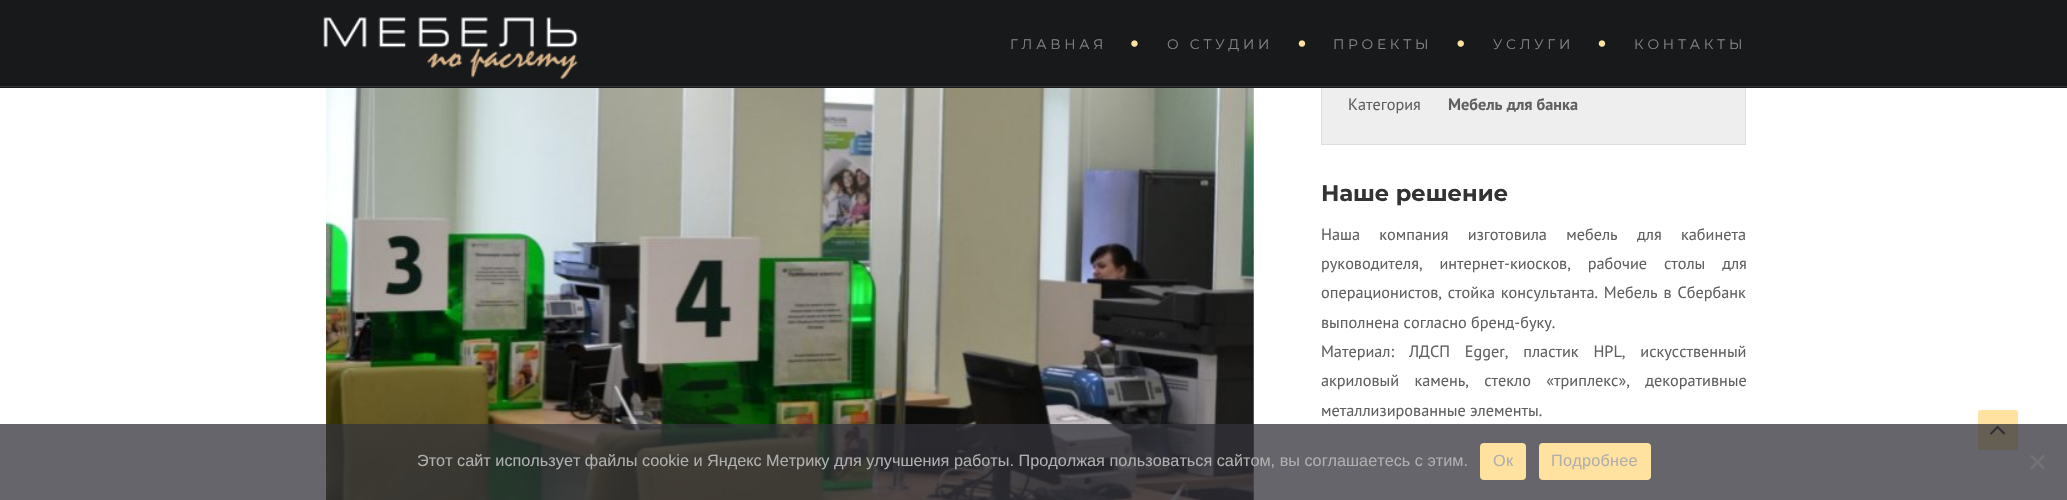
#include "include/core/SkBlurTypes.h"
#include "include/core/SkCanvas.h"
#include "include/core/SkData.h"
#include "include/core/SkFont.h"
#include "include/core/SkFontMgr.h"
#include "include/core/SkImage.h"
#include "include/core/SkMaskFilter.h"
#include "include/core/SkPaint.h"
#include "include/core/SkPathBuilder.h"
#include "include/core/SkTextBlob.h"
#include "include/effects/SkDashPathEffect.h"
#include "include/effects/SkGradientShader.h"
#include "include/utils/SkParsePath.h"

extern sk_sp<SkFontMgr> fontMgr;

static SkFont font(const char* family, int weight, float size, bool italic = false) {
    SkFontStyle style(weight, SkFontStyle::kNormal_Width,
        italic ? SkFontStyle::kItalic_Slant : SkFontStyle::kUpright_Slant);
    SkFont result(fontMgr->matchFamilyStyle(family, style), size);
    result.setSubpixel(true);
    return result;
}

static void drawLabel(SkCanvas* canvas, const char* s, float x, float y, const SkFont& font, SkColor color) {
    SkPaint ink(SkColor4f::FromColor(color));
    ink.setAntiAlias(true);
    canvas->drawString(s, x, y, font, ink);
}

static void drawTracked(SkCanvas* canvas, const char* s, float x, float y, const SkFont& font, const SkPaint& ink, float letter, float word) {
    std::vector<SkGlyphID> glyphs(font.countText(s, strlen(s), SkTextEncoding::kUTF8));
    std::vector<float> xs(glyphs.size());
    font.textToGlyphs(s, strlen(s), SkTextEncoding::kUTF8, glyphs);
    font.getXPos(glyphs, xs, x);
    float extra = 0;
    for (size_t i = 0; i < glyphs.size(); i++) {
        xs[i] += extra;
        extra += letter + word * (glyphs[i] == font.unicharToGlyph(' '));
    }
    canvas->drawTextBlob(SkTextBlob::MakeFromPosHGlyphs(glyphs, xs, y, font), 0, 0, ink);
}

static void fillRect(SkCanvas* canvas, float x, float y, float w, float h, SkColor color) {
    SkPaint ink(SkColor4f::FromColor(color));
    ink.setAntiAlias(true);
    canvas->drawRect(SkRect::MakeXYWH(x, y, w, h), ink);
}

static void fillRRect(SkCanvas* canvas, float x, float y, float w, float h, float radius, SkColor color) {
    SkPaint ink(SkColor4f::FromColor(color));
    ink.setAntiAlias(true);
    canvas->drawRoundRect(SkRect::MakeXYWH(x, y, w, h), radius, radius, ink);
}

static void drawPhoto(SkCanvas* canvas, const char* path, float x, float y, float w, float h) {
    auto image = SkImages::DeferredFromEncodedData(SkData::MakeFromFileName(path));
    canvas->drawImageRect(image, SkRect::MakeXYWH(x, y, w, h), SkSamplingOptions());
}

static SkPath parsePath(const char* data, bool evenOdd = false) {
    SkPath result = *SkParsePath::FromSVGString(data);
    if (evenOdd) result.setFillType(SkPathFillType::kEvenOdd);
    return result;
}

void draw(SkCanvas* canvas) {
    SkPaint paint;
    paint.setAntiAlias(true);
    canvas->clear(0xFFFFFFFF);
    fillRect(canvas, 1322, 88, 423, 56, 0xFFEEEEEE);
    paint.setStroke(true);
    paint.setStrokeWidth(1);
    paint.setColor(0xFFDDDDDD);
    canvas->drawRect(SkRect::MakeXYWH(1321.5f, 5.5f, 424, 139), paint);
    fillRect(canvas, 0, 0, 2067, 88, 0xFF18191B);
    fillRect(canvas, 0, 86, 2067, 1, 0xFF333333);
    drawPhoto(canvas, "assets/img1.png", 323, 17, 255, 62);
    SkFont font1 = font("Montserrat", 400, 13.75f);
    paint.setStroke(false);
    paint.setColor(0xFF848484);
    drawTracked(canvas, "ГЛАВНАЯ", 1010, 49, font1, paint, 3.75f, 0);
    drawPhoto(canvas, "assets/img2.png", 1131, 40, 7, 7);
    drawTracked(canvas, "О СТУДИИ", 1167, 49, font1, paint, 3.75f, 0);
    drawPhoto(canvas, "assets/img3.png", 1298, 40, 8, 7);
    drawTracked(canvas, "ПРОЕКТЫ", 1333, 49, font1, paint, 3.75f, 0);
    drawPhoto(canvas, "assets/img4.png", 1457, 40, 7, 7);
    drawTracked(canvas, "УСЛУГИ", 1493, 49, font1, paint, 3.75f, 0);
    drawPhoto(canvas, "assets/img3.png", 1598, 40, 8, 7);
    drawTracked(canvas, "КОНТАКТЫ", 1634, 49, font1, paint, 3.75f, 0);
    drawPhoto(canvas, "assets/img5.png", 326, 88, 928, 412);
    SkFont font2 = font("PT Sans", 400, 16.25f);
    drawLabel(canvas, "Категория", 1348, 110, font2, 0xFF606060);
    SkFont font3 = font("PT Sans", 700, 16.25f);
    drawLabel(canvas, "Мебель для банка", 1448, 110, font3, 0xFF606060);
    SkFont font4 = font("Montserrat", 700, 22.5f);
    drawLabel(canvas, "Наше решение", 1321, 201, font4, 0xFF333333);
    paint.setColor(0xFF606060);
    drawTracked(canvas, "Наша компания изготовила мебель для кабинета", 1321, 240, font2, paint, 0, 15);
    drawTracked(canvas, "руководителя, интернет-киосков, рабочие столы для", 1321, 269, font2, paint, 0, 12.5f);
    drawTracked(canvas, "операционистов, стойка консультанта. Мебель в Сбербанк", 1321, 298, font2, paint, 0, 1.5f);
    drawLabel(canvas, "выполнена согласно бренд-буку.", 1321, 328, font2, 0xFF606060);
    drawTracked(canvas, "Материал: ЛДСП Egger, пластик HPL, искусственный", 1321, 357, font2, paint, 0, 10.5f);
    drawTracked(canvas, "акриловый камень, стекло «триплекс», декоративные", 1321, 386, font2, paint, 0, 11);
    drawLabel(canvas, "металлизированные элементы.", 1321, 416, font2, 0xFF606060);
    fillRRect(canvas, 1978, 410, 40, 40, 2.5f, 0xFFFFE1A0);
    drawPhoto(canvas, "assets/img6.png", 1990, 425, 16, 10);
    fillRect(canvas, 0, 424, 2067, 76, 0xBF32323A);
    SkFont font5 = font("Liberation Sans", 400, 16.25f);
    drawLabel(canvas, "Этот сайт использует файлы cookie и Яндекс Метрику для улучшения работы. Продолжая пользоваться сайтом, вы соглашаетесь с этим.", 417, 466, font5, 0xFFAFAFAF);
    fillRRect(canvas, 1480, 443, 46, 37, 4, 0xFFFFE1A0);
    paint.setColor(0xFFAFAFAF);
    drawTracked(canvas, "Ок", 1493, 466, font5, paint, 0.25f, 0);
    fillRRect(canvas, 1539, 443, 112, 37, 4, 0xFFFFE1A0);
    drawTracked(canvas, "Подробнее", 1551, 466, font5, paint, 0.25f, 0);
    paint.setColor(0xFF737376);
    canvas->drawPath(parsePath("M2043 454.5L2045 456.5L2032 469.5L2030 468Z"), paint);
    canvas->drawPath(parsePath("M2030 456.5L2032 454.5L2045 468L2043 469.5Z"), paint);
}
